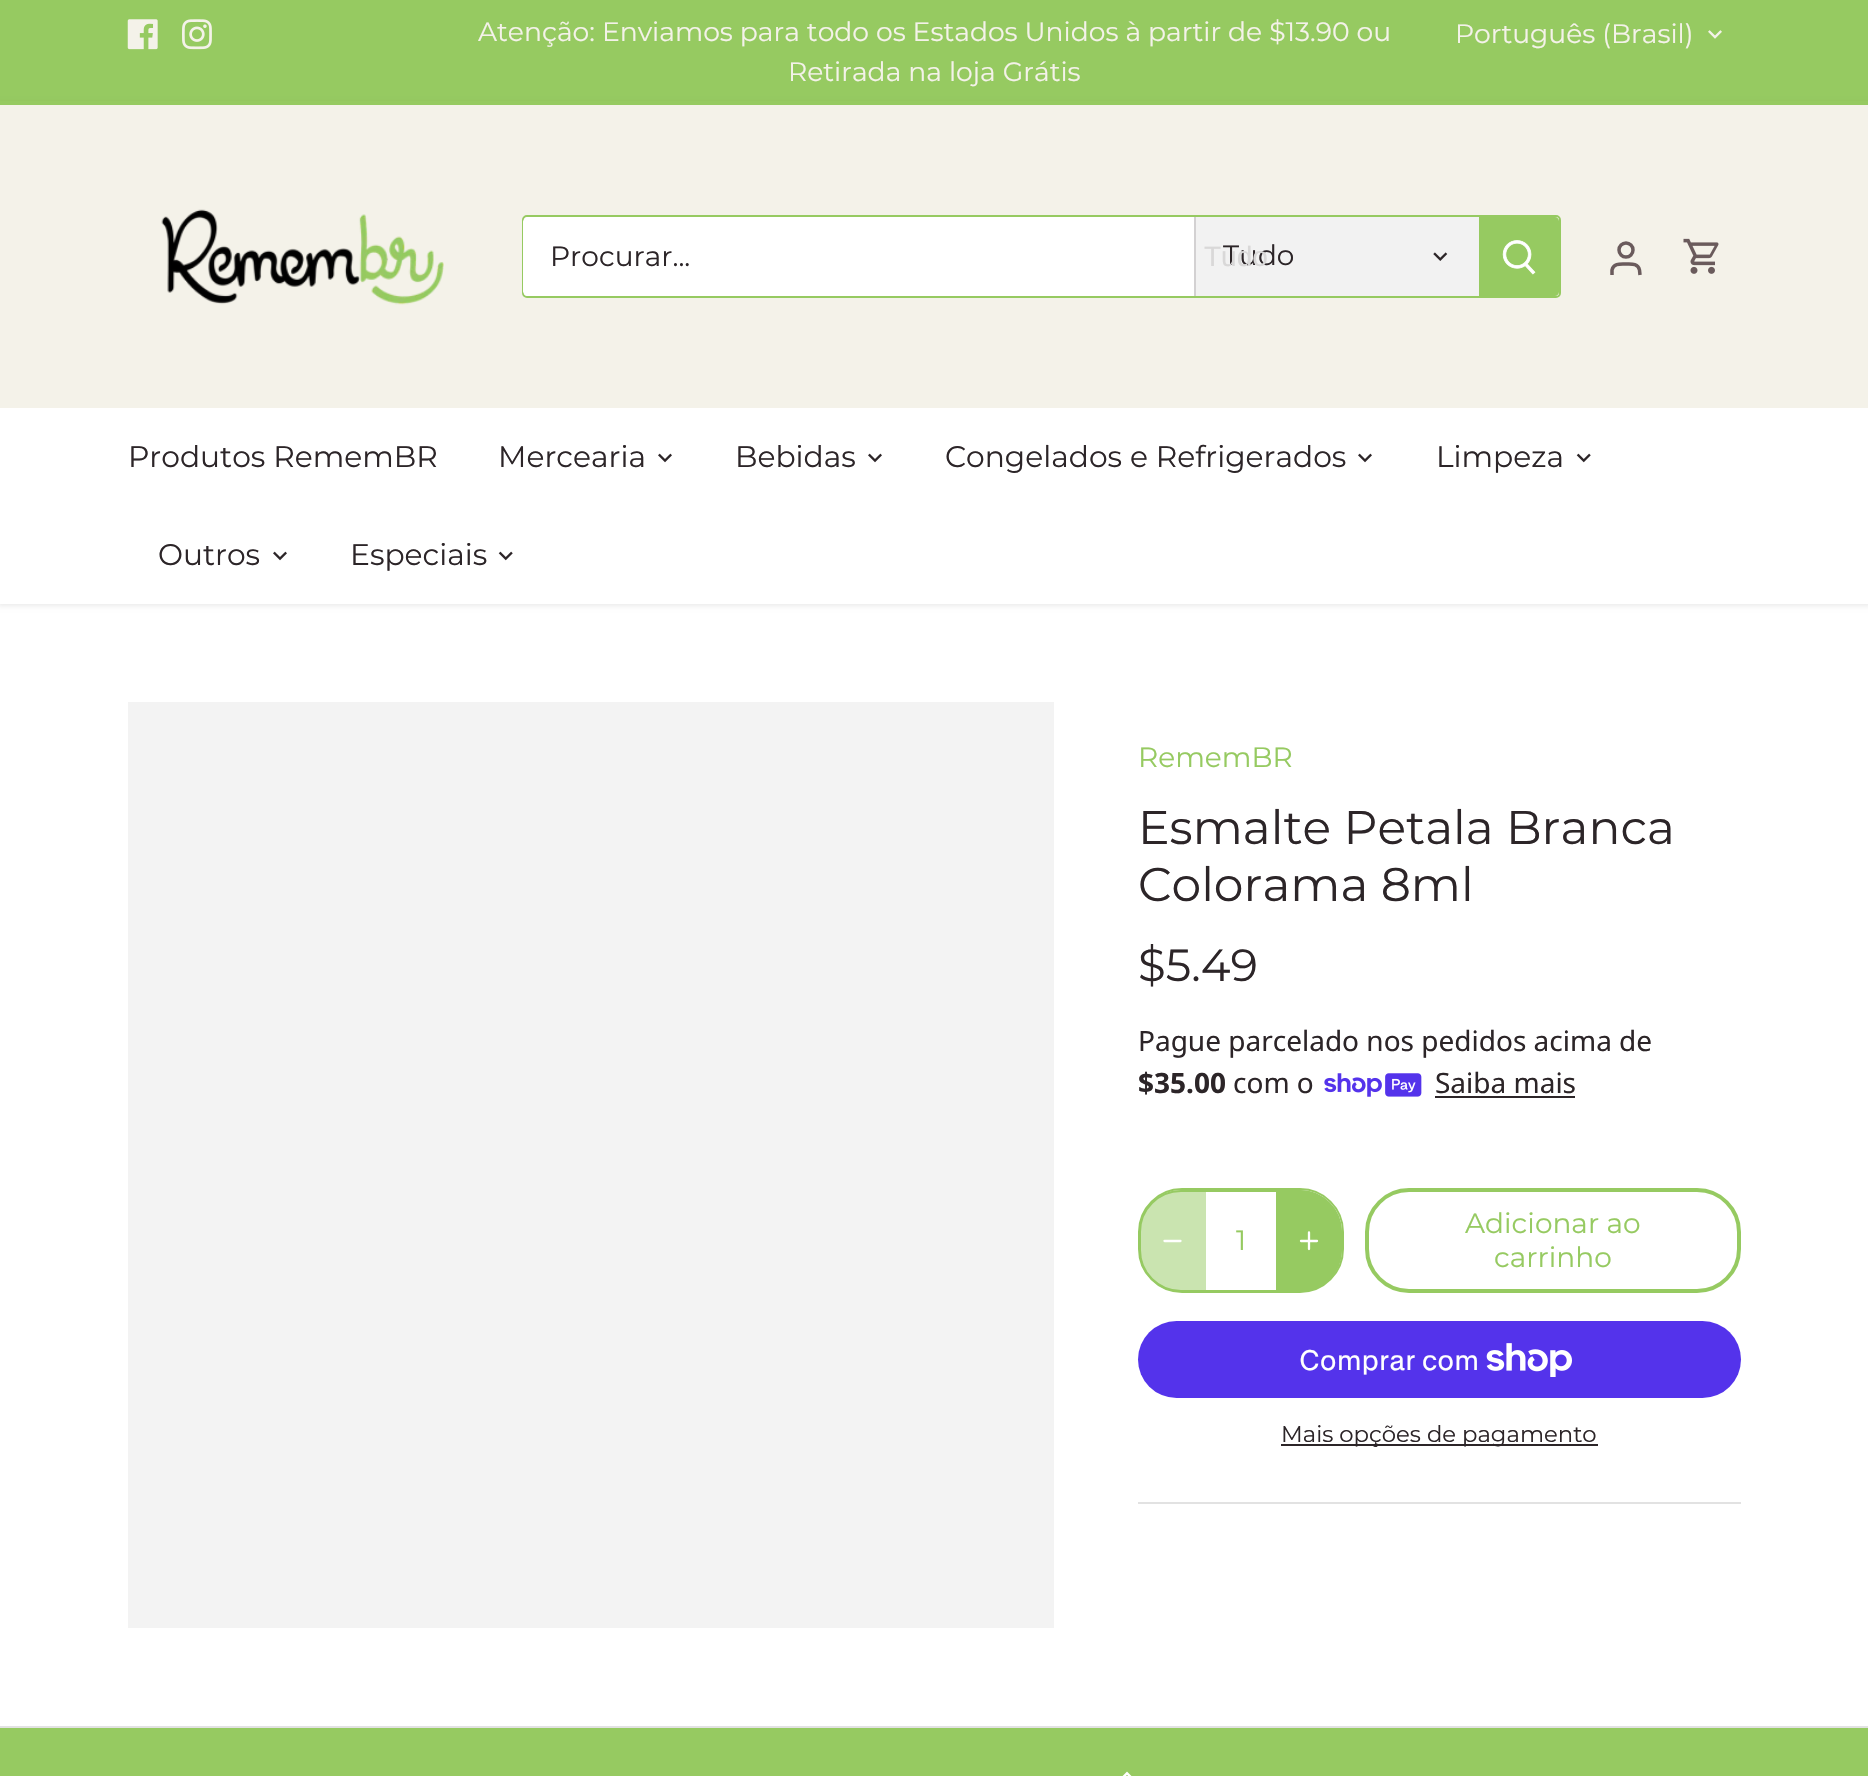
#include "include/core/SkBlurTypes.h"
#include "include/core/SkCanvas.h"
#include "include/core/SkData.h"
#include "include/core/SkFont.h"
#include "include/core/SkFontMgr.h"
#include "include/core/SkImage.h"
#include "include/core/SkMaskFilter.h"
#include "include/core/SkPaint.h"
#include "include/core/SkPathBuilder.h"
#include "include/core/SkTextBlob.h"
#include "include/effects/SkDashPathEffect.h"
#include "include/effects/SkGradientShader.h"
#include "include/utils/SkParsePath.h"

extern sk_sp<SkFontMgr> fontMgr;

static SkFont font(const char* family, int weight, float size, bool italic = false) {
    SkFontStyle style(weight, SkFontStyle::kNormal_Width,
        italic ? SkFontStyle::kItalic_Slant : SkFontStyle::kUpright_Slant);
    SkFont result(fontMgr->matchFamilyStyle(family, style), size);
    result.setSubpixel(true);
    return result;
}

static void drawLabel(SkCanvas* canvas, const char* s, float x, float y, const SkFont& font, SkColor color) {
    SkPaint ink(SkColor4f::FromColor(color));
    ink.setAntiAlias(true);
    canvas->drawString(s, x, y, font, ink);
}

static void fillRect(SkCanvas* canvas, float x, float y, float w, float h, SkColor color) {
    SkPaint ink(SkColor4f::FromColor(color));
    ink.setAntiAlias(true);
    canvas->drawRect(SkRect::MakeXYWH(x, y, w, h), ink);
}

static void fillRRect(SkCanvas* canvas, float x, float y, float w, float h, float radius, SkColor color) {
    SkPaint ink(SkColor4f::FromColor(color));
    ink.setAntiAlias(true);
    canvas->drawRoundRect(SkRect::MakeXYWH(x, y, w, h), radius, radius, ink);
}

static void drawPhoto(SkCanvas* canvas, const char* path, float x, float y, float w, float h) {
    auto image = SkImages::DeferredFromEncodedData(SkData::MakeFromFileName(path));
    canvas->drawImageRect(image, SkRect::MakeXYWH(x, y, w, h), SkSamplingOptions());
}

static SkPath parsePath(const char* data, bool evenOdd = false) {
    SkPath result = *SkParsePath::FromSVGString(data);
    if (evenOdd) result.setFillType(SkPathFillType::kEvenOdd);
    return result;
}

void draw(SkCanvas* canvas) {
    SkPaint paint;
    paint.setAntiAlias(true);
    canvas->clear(0xFF96CA61);
    fillRect(canvas, 0, 604, 1868, 1122, 0xFFFFFFFF);
    paint.setColor(0x14000000);
    paint.setMaskFilter(SkMaskFilter::MakeBlur(kNormal_SkBlurStyle, 2.5f));
    canvas->drawRect(SkRect::MakeXYWH(-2, 103, 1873, 503), paint);
    paint.setMaskFilter(nullptr);
    fillRect(canvas, 0, 101, 1868, 4, 0xFF96CA61);
    drawPhoto(canvas, "assets/img1.png", 127, 19, 31, 31);
    drawPhoto(canvas, "assets/img2.png", 182, 19, 30, 31);
    SkFont font1 = font("Montserrat", 400, 26.6f);
    drawLabel(canvas, "Atenção: Enviamos para todo os Estados Unidos à partir de $13.90 ou", 478, 41, font1, 0xFFF4F2E9);
    drawLabel(canvas, "Retirada na loja Grátis", 788, 81, font1, 0xFFF4F2E9);
    drawLabel(canvas, "Português (Brasil)", 1455, 43, font1, 0xFFF4F2E9);
    drawPhoto(canvas, "assets/img3.png", 1708, 30, 14, 9);
    fillRect(canvas, 0, 408, 1868, 196, 0xFFFFFFFF);
    fillRect(canvas, 0, 105, 1868, 303, 0xFFF4F2E9);
    drawPhoto(canvas, "assets/img4.png", 161, 209, 283, 96);
    paint.setStroke(true);
    paint.setStrokeWidth(2);
    paint.setColor(0xFF96CA61);
    canvas->drawRoundRect(SkRect::MakeXYWH(523, 216, 1037, 81), 4, 4, paint);
    canvas->save();
    canvas->clipPath(parsePath("M527 217H1555C1557 217 1559 219 1559 221V292C1559 294 1557 296 1555 296H527C525 296 523 294 523 292V221C523 219 525 217 527 217Z"), true);
    paint.setStroke(false);
    paint.setColor(0xFFFFFFFF);
    canvas->drawPath(parsePath("M528 217H1194V296H528C525 296 523 294 523 291V222C523 219 525 217 528 217Z"), paint);
    canvas->restore();
    SkFont font2 = font("Montserrat", 400, 28);
    drawLabel(canvas, "Procurar...", 550, 266, font2, 0xFF2C2528);
    fillRect(canvas, 1196, 217, 283, 79, 0xFFF2F2F2);
    fillRect(canvas, 1194, 217, 2, 79, 0xFFD3D1D2);
    drawLabel(canvas, "Tudo", 1223, 265, font2, 0xFF2C2528);
    SkFont font3 = font("Liberation Sans", 400, 28);
    drawLabel(canvas, "Tudo", 1204, 266, font3, 0xFFD9D8D8);
    drawPhoto(canvas, "assets/img5.png", 1433, 252, 15, 9);
    paint.setColor(0xFF96CA61);
    canvas->drawPath(parsePath("M1479 217H1555C1557 217 1559 219 1559 221V292C1559 294 1557 296 1555 296H1479Z"), paint);
    drawPhoto(canvas, "assets/img6.png", 1502, 240, 34, 35);
    paint.setStroke(true);
    paint.setStrokeWidth(3.5f);
    paint.setColor(0xFF6A5B5C);
    canvas->drawCircle(1626, 250, 7, paint);
    canvas->drawPath(parsePath("M1640 275L1639.5 270C1638 263 1631 264 1626 264C1620.5 264 1613.5 263 1612 270V275"), paint);
    drawPhoto(canvas, "assets/img7.png", 1683, 238, 36, 36);
    SkFont font4 = font("Montserrat", 400, 29.75f);
    drawLabel(canvas, "Produtos RememBR", 128, 467, font4, 0xFF2C2528);
    drawLabel(canvas, "Mercearia", 498, 467, font4, 0xFF2C2528);
    drawPhoto(canvas, "assets/img8.png", 658, 453, 14, 10);
    drawLabel(canvas, "Bebidas", 735, 467, font4, 0xFF2C2528);
    drawPhoto(canvas, "assets/img8.png", 868, 453, 14, 10);
    drawLabel(canvas, "Congelados e Refrigerados", 945, 467, font4, 0xFF2C2528);
    drawPhoto(canvas, "assets/img8.png", 1358, 453, 14, 10);
    drawLabel(canvas, "Limpeza", 1436, 467, font4, 0xFF2C2528);
    drawPhoto(canvas, "assets/img9.png", 1576, 453, 15, 10);
    drawLabel(canvas, "Outros", 158, 565, font4, 0xFF2C2528);
    drawPhoto(canvas, "assets/img8.png", 273, 551, 14, 10);
    drawLabel(canvas, "Especiais", 350, 565, font4, 0xFF2C2528);
    drawPhoto(canvas, "assets/img9.png", 498, 551, 15, 10);
    fillRect(canvas, 128, 702, 926, 926, 0xFFF3F3F3);
    drawLabel(canvas, "RememBR", 1138, 767, font2, 0xFF96CA61);
    SkFont font5 = font("Montserrat", 400, 47.25f);
    drawLabel(canvas, "Esmalte Petala Branca", 1138, 844, font5, 0xFF2C2528);
    drawLabel(canvas, "Colorama 8ml", 1138, 901, font5, 0xFF2C2528);
    SkFont font6 = font("Montserrat", 400, 45);
    drawLabel(canvas, "$5.49", 1138, 981, font6, 0xFF2C2528);
    SkFont font7 = font("Noto Sans", 400, 28);
    drawLabel(canvas, "Pague parcelado nos pedidos acima de", 1138, 1051, font7, 0xFF2C2528);
    SkFont font8 = font("Noto Sans", 700, 28);
    drawLabel(canvas, "$35.00", 1138, 1093, font8, 0xFF2C2528);
    drawLabel(canvas, "com o", 1233, 1093, font7, 0xFF2C2528);
    drawPhoto(canvas, "assets/img10.png", 1324, 1073, 98, 24);
    drawLabel(canvas, "Saiba mais", 1435, 1093, font7, 0xFF2C2528);
    fillRect(canvas, 1435, 1096, 140, 2, 0xFF2C2528);
    paint.setStrokeWidth(2);
    paint.setColor(0xFF96CA61);
    canvas->drawRoundRect(SkRect::MakeXYWH(1140, 1191, 201, 100), 41, 41, paint);
    canvas->drawRoundRect(SkRect::MakeXYWH(1139, 1189, 204, 103), 43, 43, paint);
    canvas->save();
    canvas->clipPath(parsePath("M1181 1190H1300C1323 1190 1342 1209 1342 1232V1250C1342 1273 1323 1292 1300 1292H1181C1158 1292 1139 1273 1139 1250V1232C1139 1209 1158 1190 1181 1190Z"), true);
    paint.setStroke(false);
    paint.setColor(0x8096CA61);
    canvas->drawPath(parsePath("M1183 1190H1206V1292H1183C1158.5 1292 1139 1272.5 1139 1248V1234C1139 1209.5 1158.5 1190 1183 1190Z"), paint);
    canvas->restore();
    paint.setStroke(true);
    paint.setStrokeWidth(2.3f);
    paint.setStrokeCap(SkPaint::kRound_Cap);
    paint.setStrokeJoin(SkPaint::kRound_Join);
    paint.setColor(0xFFFFFFFF);
    canvas->drawPath(parsePath("M1164.5 1241H1180.5"), paint);
    drawLabel(canvas, "1", 1236, 1250, font2, 0xFF96CA61);
    canvas->save();
    canvas->clipPath(parsePath("M1181 1190H1300C1323 1190 1342 1209 1342 1232V1250C1342 1273 1323 1292 1300 1292H1181C1158 1292 1139 1273 1139 1250V1232C1139 1209 1158 1190 1181 1190Z"), true);
    paint.setStroke(false);
    paint.setColor(0xFF96CA61);
    canvas->drawPath(parsePath("M1276 1190H1298C1322.5 1190 1342 1209.5 1342 1234V1248C1342 1272.5 1322.5 1292 1298 1292H1276Z"), paint);
    canvas->restore();
    paint.setStroke(true);
    paint.setColor(0xFFFFFFFF);
    canvas->drawPath(parsePath("M1309 1232.5V1249M1301 1241H1317"), paint);
    paint.setStrokeWidth(4);
    paint.setStrokeCap(SkPaint::kButt_Cap);
    paint.setStrokeJoin(SkPaint::kMiter_Join);
    paint.setColor(0xFF96CA61);
    canvas->drawRoundRect(SkRect::MakeXYWH(1367, 1190, 372, 101), 42, 42, paint);
    drawLabel(canvas, "Adicionar ao", 1465, 1233, font2, 0xFF96CA61);
    drawLabel(canvas, "carrinho", 1494, 1267, font2, 0xFF96CA61);
    fillRRect(canvas, 1138, 1321, 603, 77, 38.5f, 0xFF5433EB);
    SkFont font9 = font("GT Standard", 400, 28);
    drawLabel(canvas, "Comprar com", 1299, 1370, font9, 0xFFFFFFFF);
    drawPhoto(canvas, "assets/img11.png", 1486, 1343, 86, 34);
    fillRect(canvas, 1281, 1444, 317, 2, 0xFF2C2528);
    SkFont font10 = font("Montserrat", 400, 22.75f);
    drawLabel(canvas, "Mais opções de pagamento", 1281, 1442, font10, 0xFF2C2528);
    fillRect(canvas, 1138, 1502, 603, 2, 0xFFE2E2E2);
    fillRect(canvas, 0, 1726, 1868, 2, 0xFFE2E2E2);
    drawPhoto(canvas, "assets/img12.png", 1122, 1771, 10, 5);
}
